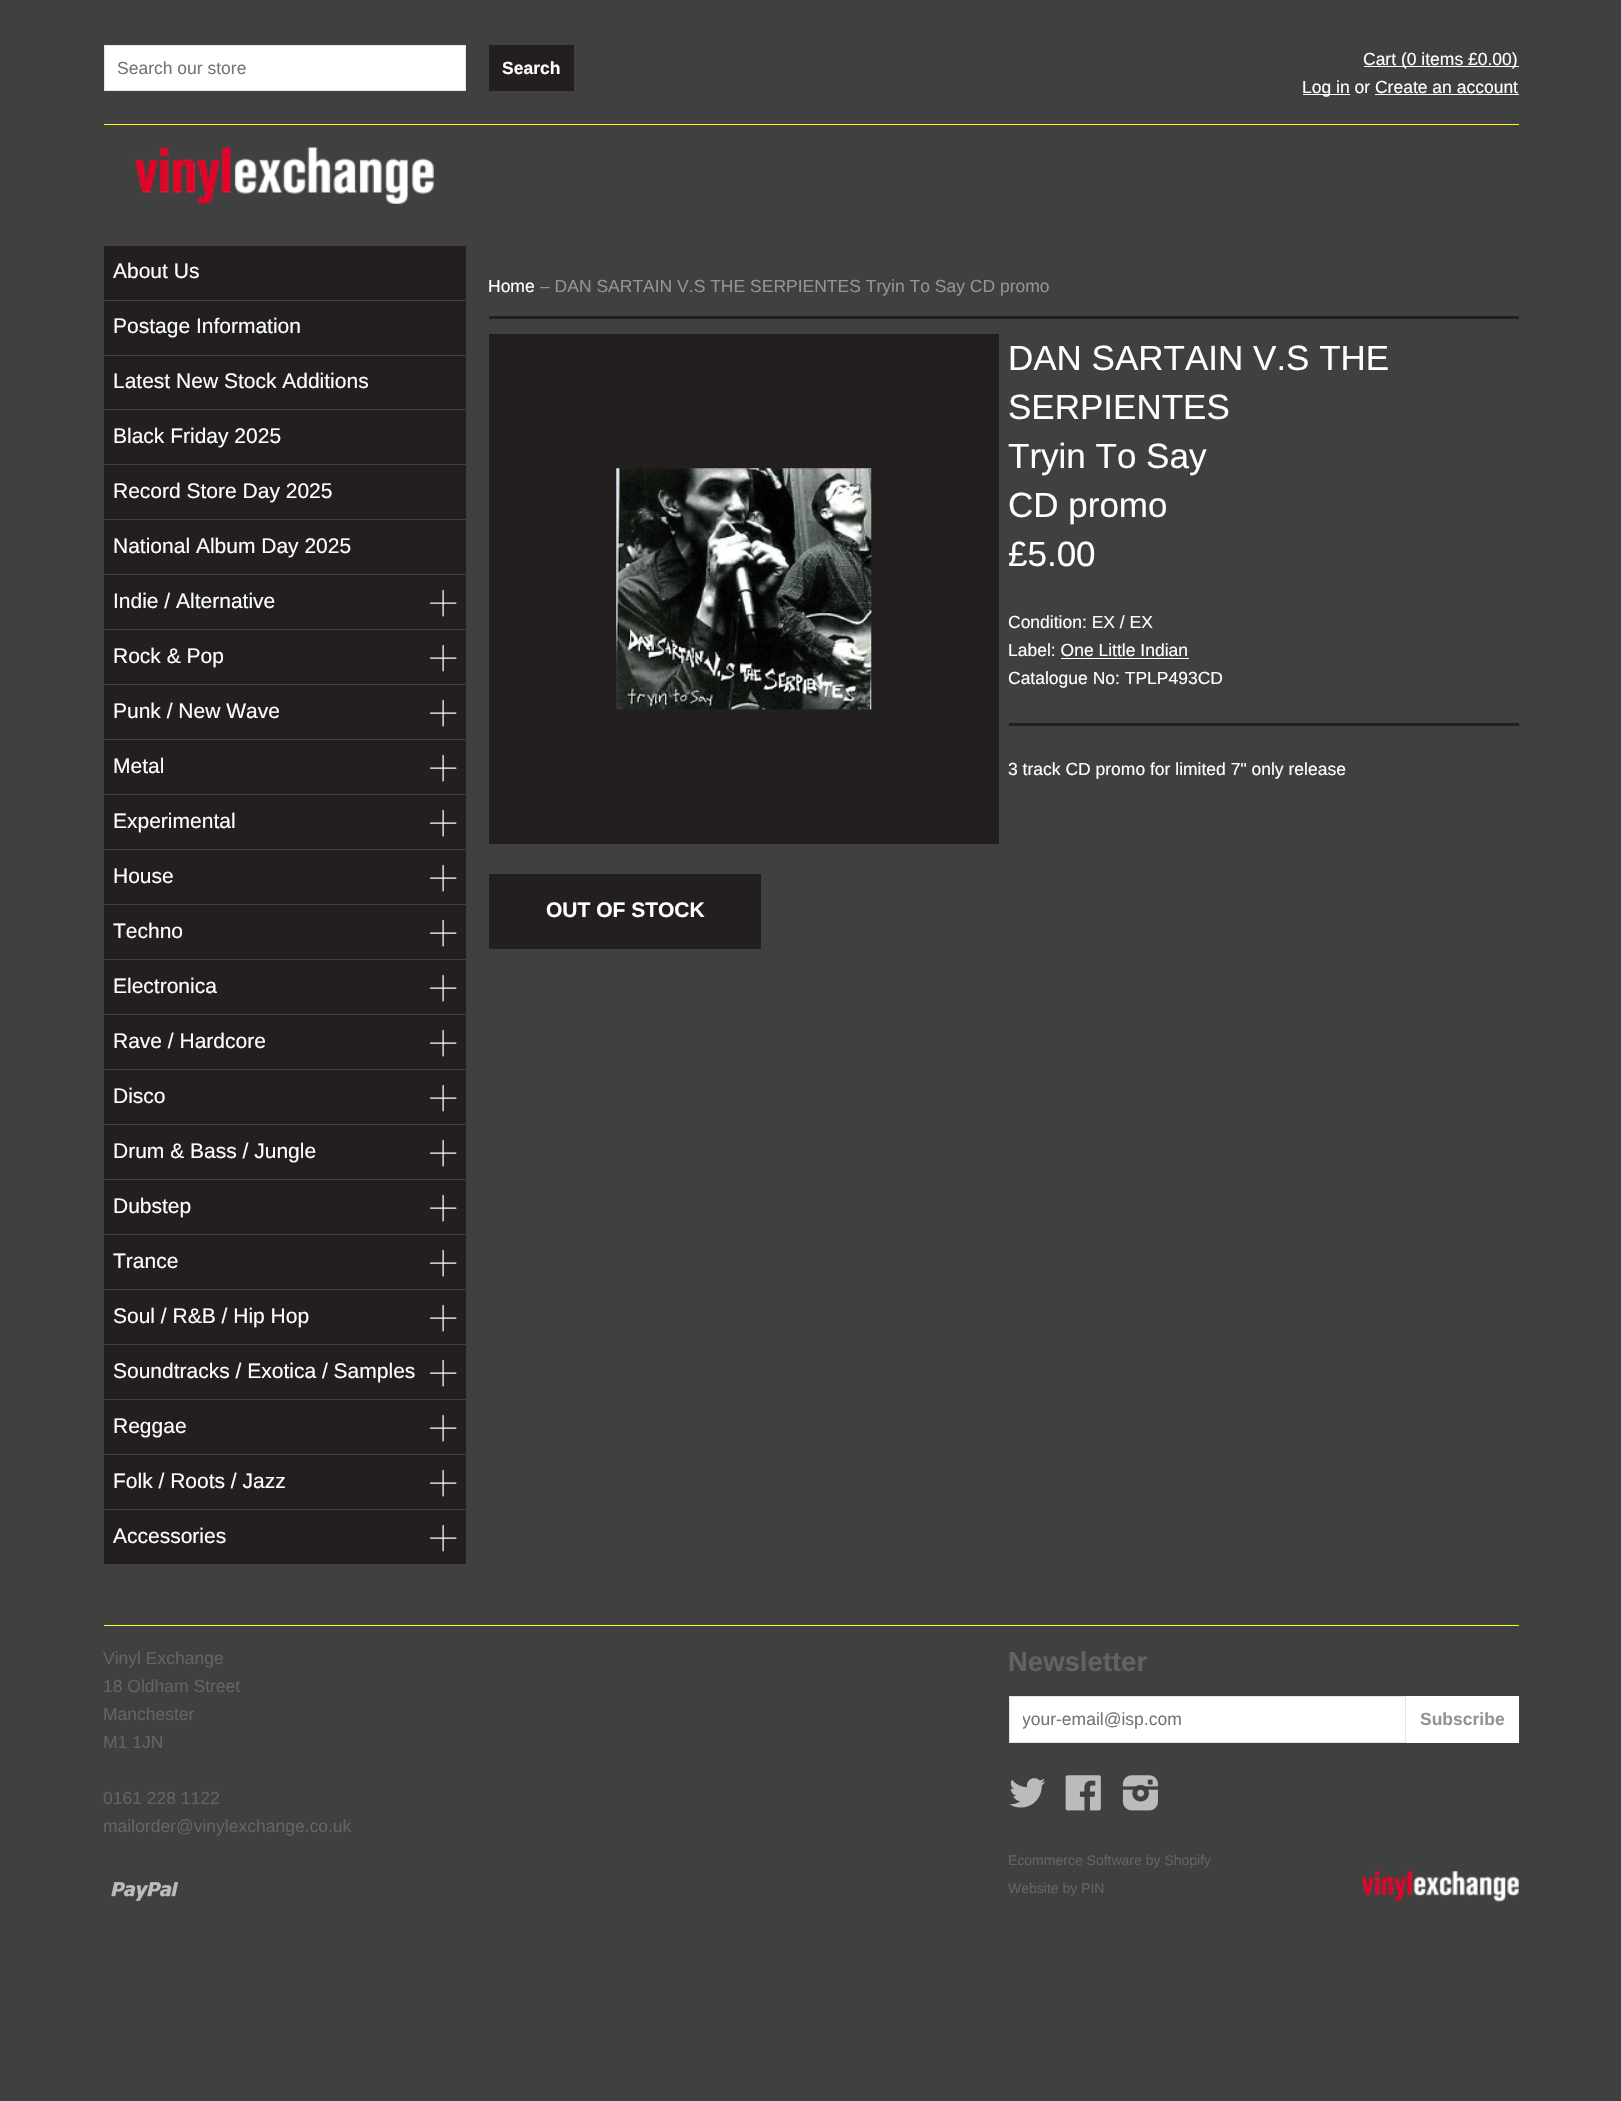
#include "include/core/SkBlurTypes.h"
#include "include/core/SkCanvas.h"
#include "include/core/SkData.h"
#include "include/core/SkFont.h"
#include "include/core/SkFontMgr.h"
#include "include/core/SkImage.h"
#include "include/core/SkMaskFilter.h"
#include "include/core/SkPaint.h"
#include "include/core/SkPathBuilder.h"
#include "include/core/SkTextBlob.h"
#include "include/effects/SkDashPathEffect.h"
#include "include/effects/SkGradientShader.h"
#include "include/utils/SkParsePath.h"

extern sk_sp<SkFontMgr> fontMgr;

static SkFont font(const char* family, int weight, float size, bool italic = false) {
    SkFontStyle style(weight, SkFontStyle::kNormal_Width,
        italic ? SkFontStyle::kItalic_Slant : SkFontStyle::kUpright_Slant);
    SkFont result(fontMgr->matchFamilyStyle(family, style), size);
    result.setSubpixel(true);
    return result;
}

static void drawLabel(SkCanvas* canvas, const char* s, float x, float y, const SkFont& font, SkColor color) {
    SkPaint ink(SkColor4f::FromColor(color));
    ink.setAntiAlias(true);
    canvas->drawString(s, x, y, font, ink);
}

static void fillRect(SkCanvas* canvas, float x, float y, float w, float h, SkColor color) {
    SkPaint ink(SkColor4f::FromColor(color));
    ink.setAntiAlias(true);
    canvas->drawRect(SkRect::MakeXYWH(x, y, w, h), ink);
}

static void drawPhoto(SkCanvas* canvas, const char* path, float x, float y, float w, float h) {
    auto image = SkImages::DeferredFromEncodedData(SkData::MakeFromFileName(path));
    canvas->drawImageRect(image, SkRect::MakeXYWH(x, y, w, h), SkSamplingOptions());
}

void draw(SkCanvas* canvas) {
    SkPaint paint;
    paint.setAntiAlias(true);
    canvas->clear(0xFF404041);
    fillRect(canvas, 104, 124, 1415, 1, 0xFFFFFF0A);
    paint.setColor(0xFFFFFFFF);
    canvas->drawRect(SkRect::MakeXYWH(104.5f, 45.5f, 361, 45), paint);
    paint.setStroke(true);
    paint.setStrokeWidth(1);
    paint.setColor(0xFFE5E5E5);
    canvas->drawRect(SkRect::MakeXYWH(104.5f, 45.5f, 361, 45), paint);
    SkFont font1 = font("Liberation Sans", 400, 17.5f);
    drawLabel(canvas, "Search our store", 117, 74, font1, 0xFF757575);
    fillRect(canvas, 489, 45, 85, 46, 0xFF231F20);
    SkFont font2 = font("Liberation Sans", 700, 17.5f);
    drawLabel(canvas, "Search", 502, 74, font2, 0xFFFFFFFF);
    fillRect(canvas, 1364, 66, 155, 1, 0xFFFFFFFF);
    drawLabel(canvas, "Cart (0 items £0.00)", 1363, 65, font1, 0xFFFFFFFF);
    fillRect(canvas, 1303, 94, 47, 1, 0xFFFFFFFF);
    drawLabel(canvas, "Log in or Create an account", 1302, 93, font1, 0xFFFFFFFF);
    fillRect(canvas, 1375, 94, 144, 1, 0xFFFFFFFF);
    drawPhoto(canvas, "assets/img1.png", 135, 147, 299, 57);
    fillRect(canvas, 104, 246, 362, 54, 0xFF231F20);
    SkFont font3 = font("Liberation Sans", 400, 21);
    drawLabel(canvas, "About Us", 113, 278, font3, 0xFFFFFFFF);
    fillRect(canvas, 104, 301, 362, 54, 0xFF231F20);
    drawLabel(canvas, "Postage Information", 113, 333, font3, 0xFFFFFFFF);
    fillRect(canvas, 104, 356, 362, 53, 0xFF231F20);
    drawLabel(canvas, "Latest New Stock Additions", 113, 388, font3, 0xFFFFFFFF);
    fillRect(canvas, 104, 410, 362, 54, 0xFF231F20);
    drawLabel(canvas, "Black Friday 2025", 113, 443, font3, 0xFFFFFFFF);
    fillRect(canvas, 104, 465, 362, 54, 0xFF231F20);
    drawLabel(canvas, "Record Store Day 2025", 113, 498, font3, 0xFFFFFFFF);
    fillRect(canvas, 104, 520, 362, 54, 0xFF231F20);
    drawLabel(canvas, "National Album Day 2025", 113, 553, font3, 0xFFFFFFFF);
    fillRect(canvas, 104, 575, 362, 54, 0xFF231F20);
    drawPhoto(canvas, "assets/img2.png", 429, 589, 28, 28);
    drawLabel(canvas, "Indie / Alternative", 113, 608, font3, 0xFFFFFFFF);
    fillRect(canvas, 104, 630, 362, 54, 0xFF231F20);
    drawPhoto(canvas, "assets/img3.png", 429, 644, 28, 28);
    drawLabel(canvas, "Rock & Pop", 113, 663, font3, 0xFFFFFFFF);
    fillRect(canvas, 104, 685, 362, 54, 0xFF231F20);
    drawPhoto(canvas, "assets/img3.png", 429, 699, 28, 28);
    drawLabel(canvas, "Punk / New Wave", 113, 718, font3, 0xFFFFFFFF);
    fillRect(canvas, 104, 740, 362, 54, 0xFF231F20);
    drawPhoto(canvas, "assets/img3.png", 429, 754, 28, 28);
    drawLabel(canvas, "Metal", 113, 773, font3, 0xFFFFFFFF);
    fillRect(canvas, 104, 795, 362, 54, 0xFF231F20);
    drawPhoto(canvas, "assets/img3.png", 429, 809, 28, 28);
    drawLabel(canvas, "Experimental", 113, 828, font3, 0xFFFFFFFF);
    fillRect(canvas, 104, 850, 362, 54, 0xFF231F20);
    drawPhoto(canvas, "assets/img3.png", 429, 864, 28, 28);
    drawLabel(canvas, "House", 113, 883, font3, 0xFFFFFFFF);
    fillRect(canvas, 104, 905, 362, 54, 0xFF231F20);
    drawPhoto(canvas, "assets/img3.png", 429, 919, 28, 28);
    drawLabel(canvas, "Techno", 113, 938, font3, 0xFFFFFFFF);
    fillRect(canvas, 104, 960, 362, 54, 0xFF231F20);
    drawPhoto(canvas, "assets/img3.png", 429, 974, 28, 28);
    drawLabel(canvas, "Electronica", 113, 993, font3, 0xFFFFFFFF);
    fillRect(canvas, 104, 1015, 362, 54, 0xFF231F20);
    drawPhoto(canvas, "assets/img3.png", 429, 1029, 28, 28);
    drawLabel(canvas, "Rave / Hardcore", 113, 1048, font3, 0xFFFFFFFF);
    fillRect(canvas, 104, 1070, 362, 54, 0xFF231F20);
    drawPhoto(canvas, "assets/img3.png", 429, 1084, 28, 28);
    drawLabel(canvas, "Disco", 113, 1103, font3, 0xFFFFFFFF);
    fillRect(canvas, 104, 1125, 362, 54, 0xFF231F20);
    drawPhoto(canvas, "assets/img3.png", 429, 1139, 28, 28);
    drawLabel(canvas, "Drum & Bass / Jungle", 113, 1158, font3, 0xFFFFFFFF);
    fillRect(canvas, 104, 1180, 362, 54, 0xFF231F20);
    drawPhoto(canvas, "assets/img3.png", 429, 1194, 28, 28);
    drawLabel(canvas, "Dubstep", 113, 1213, font3, 0xFFFFFFFF);
    fillRect(canvas, 104, 1235, 362, 54, 0xFF231F20);
    drawPhoto(canvas, "assets/img3.png", 429, 1249, 28, 28);
    drawLabel(canvas, "Trance", 113, 1268, font3, 0xFFFFFFFF);
    fillRect(canvas, 104, 1290, 362, 54, 0xFF231F20);
    drawPhoto(canvas, "assets/img3.png", 429, 1304, 28, 28);
    drawLabel(canvas, "Soul / R&B / Hip Hop", 113, 1323, font3, 0xFFFFFFFF);
    fillRect(canvas, 104, 1345, 362, 54, 0xFF231F20);
    drawPhoto(canvas, "assets/img3.png", 429, 1359, 28, 28);
    drawLabel(canvas, "Soundtracks / Exotica / Samples", 113, 1378, font3, 0xFFFFFFFF);
    fillRect(canvas, 104, 1400, 362, 54, 0xFF231F20);
    drawPhoto(canvas, "assets/img3.png", 429, 1414, 28, 28);
    drawLabel(canvas, "Reggae", 113, 1433, font3, 0xFFFFFFFF);
    fillRect(canvas, 104, 1455, 362, 54, 0xFF231F20);
    drawPhoto(canvas, "assets/img3.png", 429, 1469, 28, 28);
    drawLabel(canvas, "Folk / Roots / Jazz", 113, 1488, font3, 0xFFFFFFFF);
    fillRect(canvas, 104, 1510, 362, 54, 0xFF231F20);
    drawPhoto(canvas, "assets/img3.png", 429, 1524, 28, 28);
    drawLabel(canvas, "Accessories", 113, 1543, font3, 0xFFFFFFFF);
    fillRect(canvas, 489, 316, 1030, 3, 0xFF231F20);
    drawLabel(canvas, "Home", 488, 292, font1, 0xFFFFFFFF);
    drawLabel(canvas, "– DAN SARTAIN V.S THE SERPIENTES Tryin To Say CD promo", 540, 292, font1, 0xFF929497);
    SkFont font4 = font("Liberation Sans", 400, 35);
    drawLabel(canvas, "DAN SARTAIN V.S THE", 1008, 370, font4, 0xFFFFFFFF);
    drawLabel(canvas, "SERPIENTES", 1008, 419, font4, 0xFFFFFFFF);
    drawLabel(canvas, "Tryin To Say", 1008, 468, font4, 0xFFFFFFFF);
    drawLabel(canvas, "CD promo", 1008, 517, font4, 0xFFFFFFFF);
    drawLabel(canvas, "£5.00", 1008, 566, font4, 0xFFFFFFFF);
    fillRect(canvas, 1009, 723, 510, 3, 0xFF231F20);
    drawLabel(canvas, "Condition: EX / EX", 1008, 628, font1, 0xFFFFFFFF);
    drawLabel(canvas, "Label: One Little Indian", 1008, 656, font1, 0xFFFFFFFF);
    fillRect(canvas, 1061, 658, 128, 1, 0xFFFFFFFF);
    drawLabel(canvas, "Catalogue No: TPLP493CD", 1008, 684, font1, 0xFFFFFFFF);
    drawLabel(canvas, "3 track CD promo for limited 7\" only release", 1008, 775, font1, 0xFFFFFFFF);
    fillRect(canvas, 489, 334, 510, 510, 0xFF231F20);
    drawPhoto(canvas, "assets/img4.png", 616, 468, 256, 242);
    fillRect(canvas, 489, 874, 272, 75, 0xFF231F20);
    SkFont font5 = font("Liberation Sans", 700, 21);
    drawLabel(canvas, "OUT OF STOCK", 546, 917, font5, 0xFFFFFFFF);
    fillRect(canvas, 104, 1625, 1415, 1, 0xFFFFFF0A);
    drawLabel(canvas, "Vinyl Exchange", 103, 1664, font1, 0xFF636363);
    drawLabel(canvas, "18 Oldham Street", 103, 1692, font1, 0xFF636363);
    drawLabel(canvas, "Manchester", 103, 1720, font1, 0xFF636363);
    drawLabel(canvas, "M1 1JN", 103, 1748, font1, 0xFF636363);
    drawLabel(canvas, "0161 228 1122", 103, 1804, font1, 0xFF636363);
    drawLabel(canvas, "mailorder@vinylexchange.co.uk", 103, 1832, font1, 0xFF636363);
    drawPhoto(canvas, "assets/img5.png", 111, 1882, 68, 19);
    drawPhoto(canvas, "assets/img6.png", 1361, 1871, 158, 31);
    SkFont font6 = font("Liberation Sans", 700, 27.5f);
    drawLabel(canvas, "Newsletter", 1008, 1671, font6, 0xFF636363);
    paint.setStroke(false);
    paint.setColor(0xFFFFFFFF);
    canvas->drawRect(SkRect::MakeXYWH(1009.5f, 1696.5f, 396, 46), paint);
    paint.setStroke(true);
    paint.setColor(0xFFE5E5E5);
    canvas->drawRect(SkRect::MakeXYWH(1009.5f, 1696.5f, 396, 46), paint);
    canvas->save();
    canvas->clipRect(SkRect::MakeXYWH(1023, 1709, 370, 20));
    drawLabel(canvas, "your-email@isp.com", 1022, 1725, font1, 0xFF757575);
    canvas->restore();
    fillRect(canvas, 1406, 1696, 113, 47, 0xFFFFFFFF);
    drawLabel(canvas, "Subscribe", 1420, 1725, font2, 0xFF929497);
    drawPhoto(canvas, "assets/img7.png", 1009, 1778, 37, 30);
    drawPhoto(canvas, "assets/img8.png", 1065, 1775, 36, 36);
    drawPhoto(canvas, "assets/img9.png", 1122, 1775, 36, 36);
    SkFont font7 = font("Liberation Sans", 400, 14);
    drawLabel(canvas, "Ecommerce Software by Shopify", 1008, 1865, font7, 0xFF636363);
    drawLabel(canvas, "Website by PIN", 1008, 1893, font7, 0xFF636363);
}
